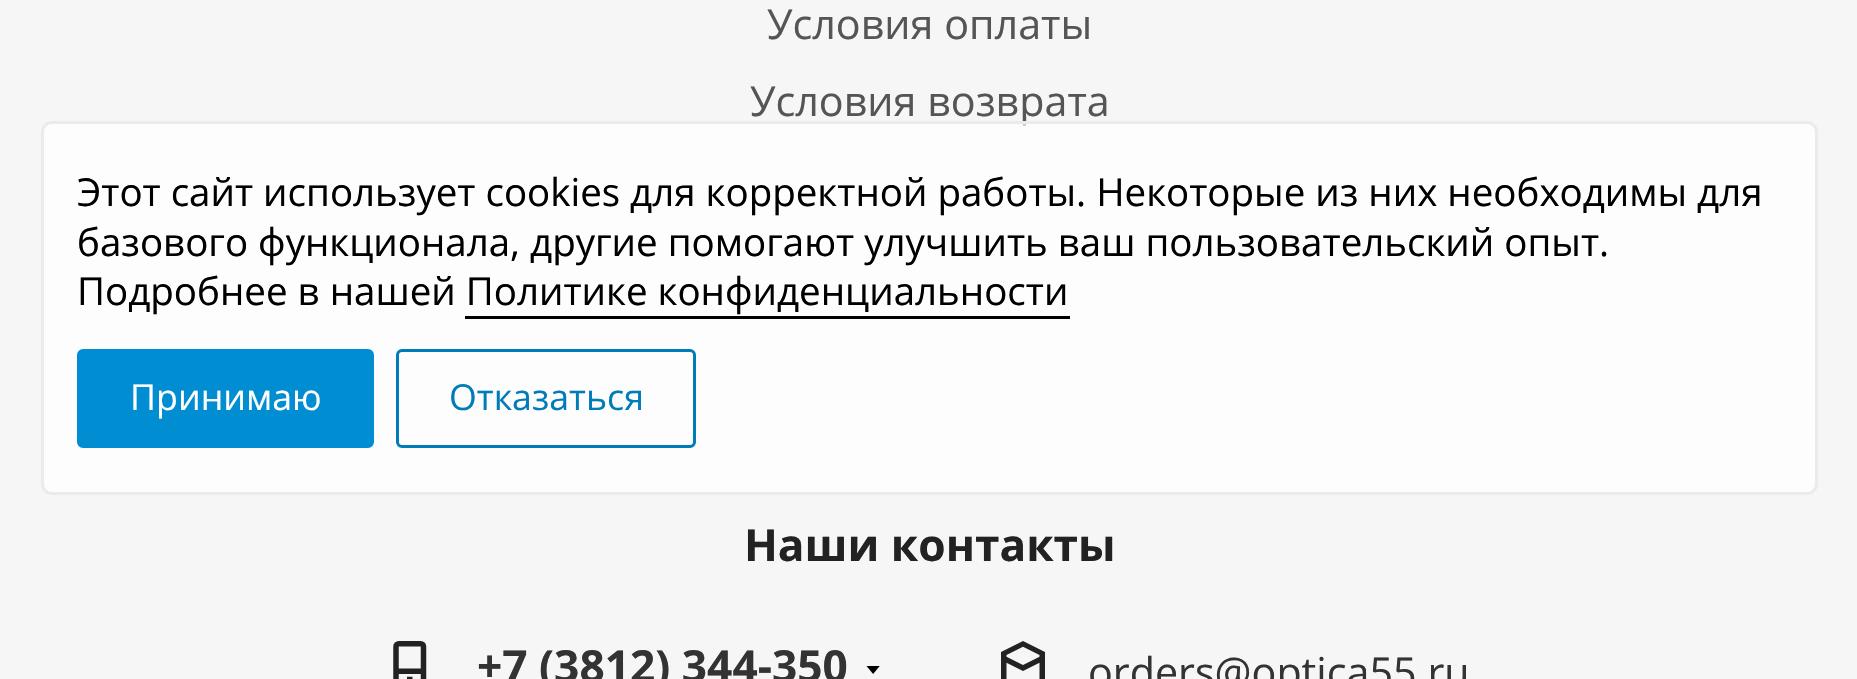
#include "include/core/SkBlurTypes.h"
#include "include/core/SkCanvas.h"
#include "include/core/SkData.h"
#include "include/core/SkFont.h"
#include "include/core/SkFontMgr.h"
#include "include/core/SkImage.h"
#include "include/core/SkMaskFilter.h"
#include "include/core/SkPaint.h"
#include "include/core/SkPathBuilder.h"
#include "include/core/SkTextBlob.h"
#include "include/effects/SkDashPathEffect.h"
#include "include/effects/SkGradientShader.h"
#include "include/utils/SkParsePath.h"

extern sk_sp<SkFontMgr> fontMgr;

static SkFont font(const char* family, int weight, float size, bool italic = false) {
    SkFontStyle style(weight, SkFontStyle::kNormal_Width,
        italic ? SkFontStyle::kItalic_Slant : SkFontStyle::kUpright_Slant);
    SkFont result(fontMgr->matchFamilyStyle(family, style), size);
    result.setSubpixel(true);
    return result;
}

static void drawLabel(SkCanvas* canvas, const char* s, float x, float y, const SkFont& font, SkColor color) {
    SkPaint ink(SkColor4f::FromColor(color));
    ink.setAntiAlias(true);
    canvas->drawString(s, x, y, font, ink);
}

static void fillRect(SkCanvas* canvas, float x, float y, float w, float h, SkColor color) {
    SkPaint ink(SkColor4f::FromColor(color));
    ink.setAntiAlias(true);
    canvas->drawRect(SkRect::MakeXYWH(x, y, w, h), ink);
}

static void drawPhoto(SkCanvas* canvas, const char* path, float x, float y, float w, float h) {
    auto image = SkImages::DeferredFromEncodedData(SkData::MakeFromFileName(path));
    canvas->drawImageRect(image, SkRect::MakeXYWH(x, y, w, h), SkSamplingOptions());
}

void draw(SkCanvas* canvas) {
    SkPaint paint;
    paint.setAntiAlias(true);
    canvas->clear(0xFFF6F6F7);
    SkFont font1 = font("Open Sans", 400, 41.25f);
    drawLabel(canvas, "Условия оплаты", 767, 39, font1, 0xFF555555);
    drawLabel(canvas, "Условия возврата", 750, 116, font1, 0xFF555555);
    SkFont font2 = font("Open Sans", 700, 44.25f);
    drawLabel(canvas, "Наши контакты", 744, 561, font2, 0xFF222222);
    drawPhoto(canvas, "assets/img1.png", 393, 641, 34, 38);
    drawLabel(canvas, "+7 (3812) 344-350", 477, 682, font2, 0xFF333333);
    drawPhoto(canvas, "assets/img2.png", 866, 666, 14, 8);
    drawPhoto(canvas, "assets/img3.png", 1001, 641, 44, 38);
    drawLabel(canvas, "orders@optica55.ru", 1088, 687, font1, 0xFF333333);
    paint.setColor(0xB3FFFFFF);
    canvas->drawRoundRect(SkRect::MakeXYWH(42.5f, 122.5f, 1774, 371), 9.5f, 9.5f, paint);
    paint.setStroke(true);
    paint.setStrokeWidth(3);
    paint.setColor(0xFFEBEBEB);
    canvas->drawRoundRect(SkRect::MakeXYWH(42.5f, 122.5f, 1774, 371), 9.5f, 9.5f, paint);
    SkFont font3 = font("Open Sans", 400, 38.5f);
    drawLabel(canvas, "Этот сайт использует cookies для корректной работы. Некоторые из них необходимы для", 77, 206, font3, 0xFF000000);
    drawLabel(canvas, "базового функционала, другие помогают улучшить ваш пользовательский опыт.", 77, 256, font3, 0xFF000000);
    drawLabel(canvas, "Подробнее в нашей Политике конфиденциальности", 77, 305, font3, 0xFF000000);
    fillRect(canvas, 465, 316, 605, 3, 0xFF000000);
    paint.setStroke(false);
    paint.setColor(0xFF008DD2);
    canvas->drawRoundRect(SkRect::MakeXYWH(78.5f, 350.5f, 294, 96), 4.5f, 4.5f, paint);
    paint.setStroke(true);
    canvas->drawRoundRect(SkRect::MakeXYWH(78.5f, 350.5f, 294, 96), 4.5f, 4.5f, paint);
    SkFont font4 = font("Open Sans", 400, 35.75f);
    drawLabel(canvas, "Принимаю", 130, 410, font4, 0xFFFFFFFF);
    paint.setColor(0xFF007CB9);
    canvas->drawRoundRect(SkRect::MakeXYWH(397.5f, 350.5f, 297, 96), 4.5f, 4.5f, paint);
    drawLabel(canvas, "Отказаться", 449, 410, font4, 0xFF007CB9);
}
